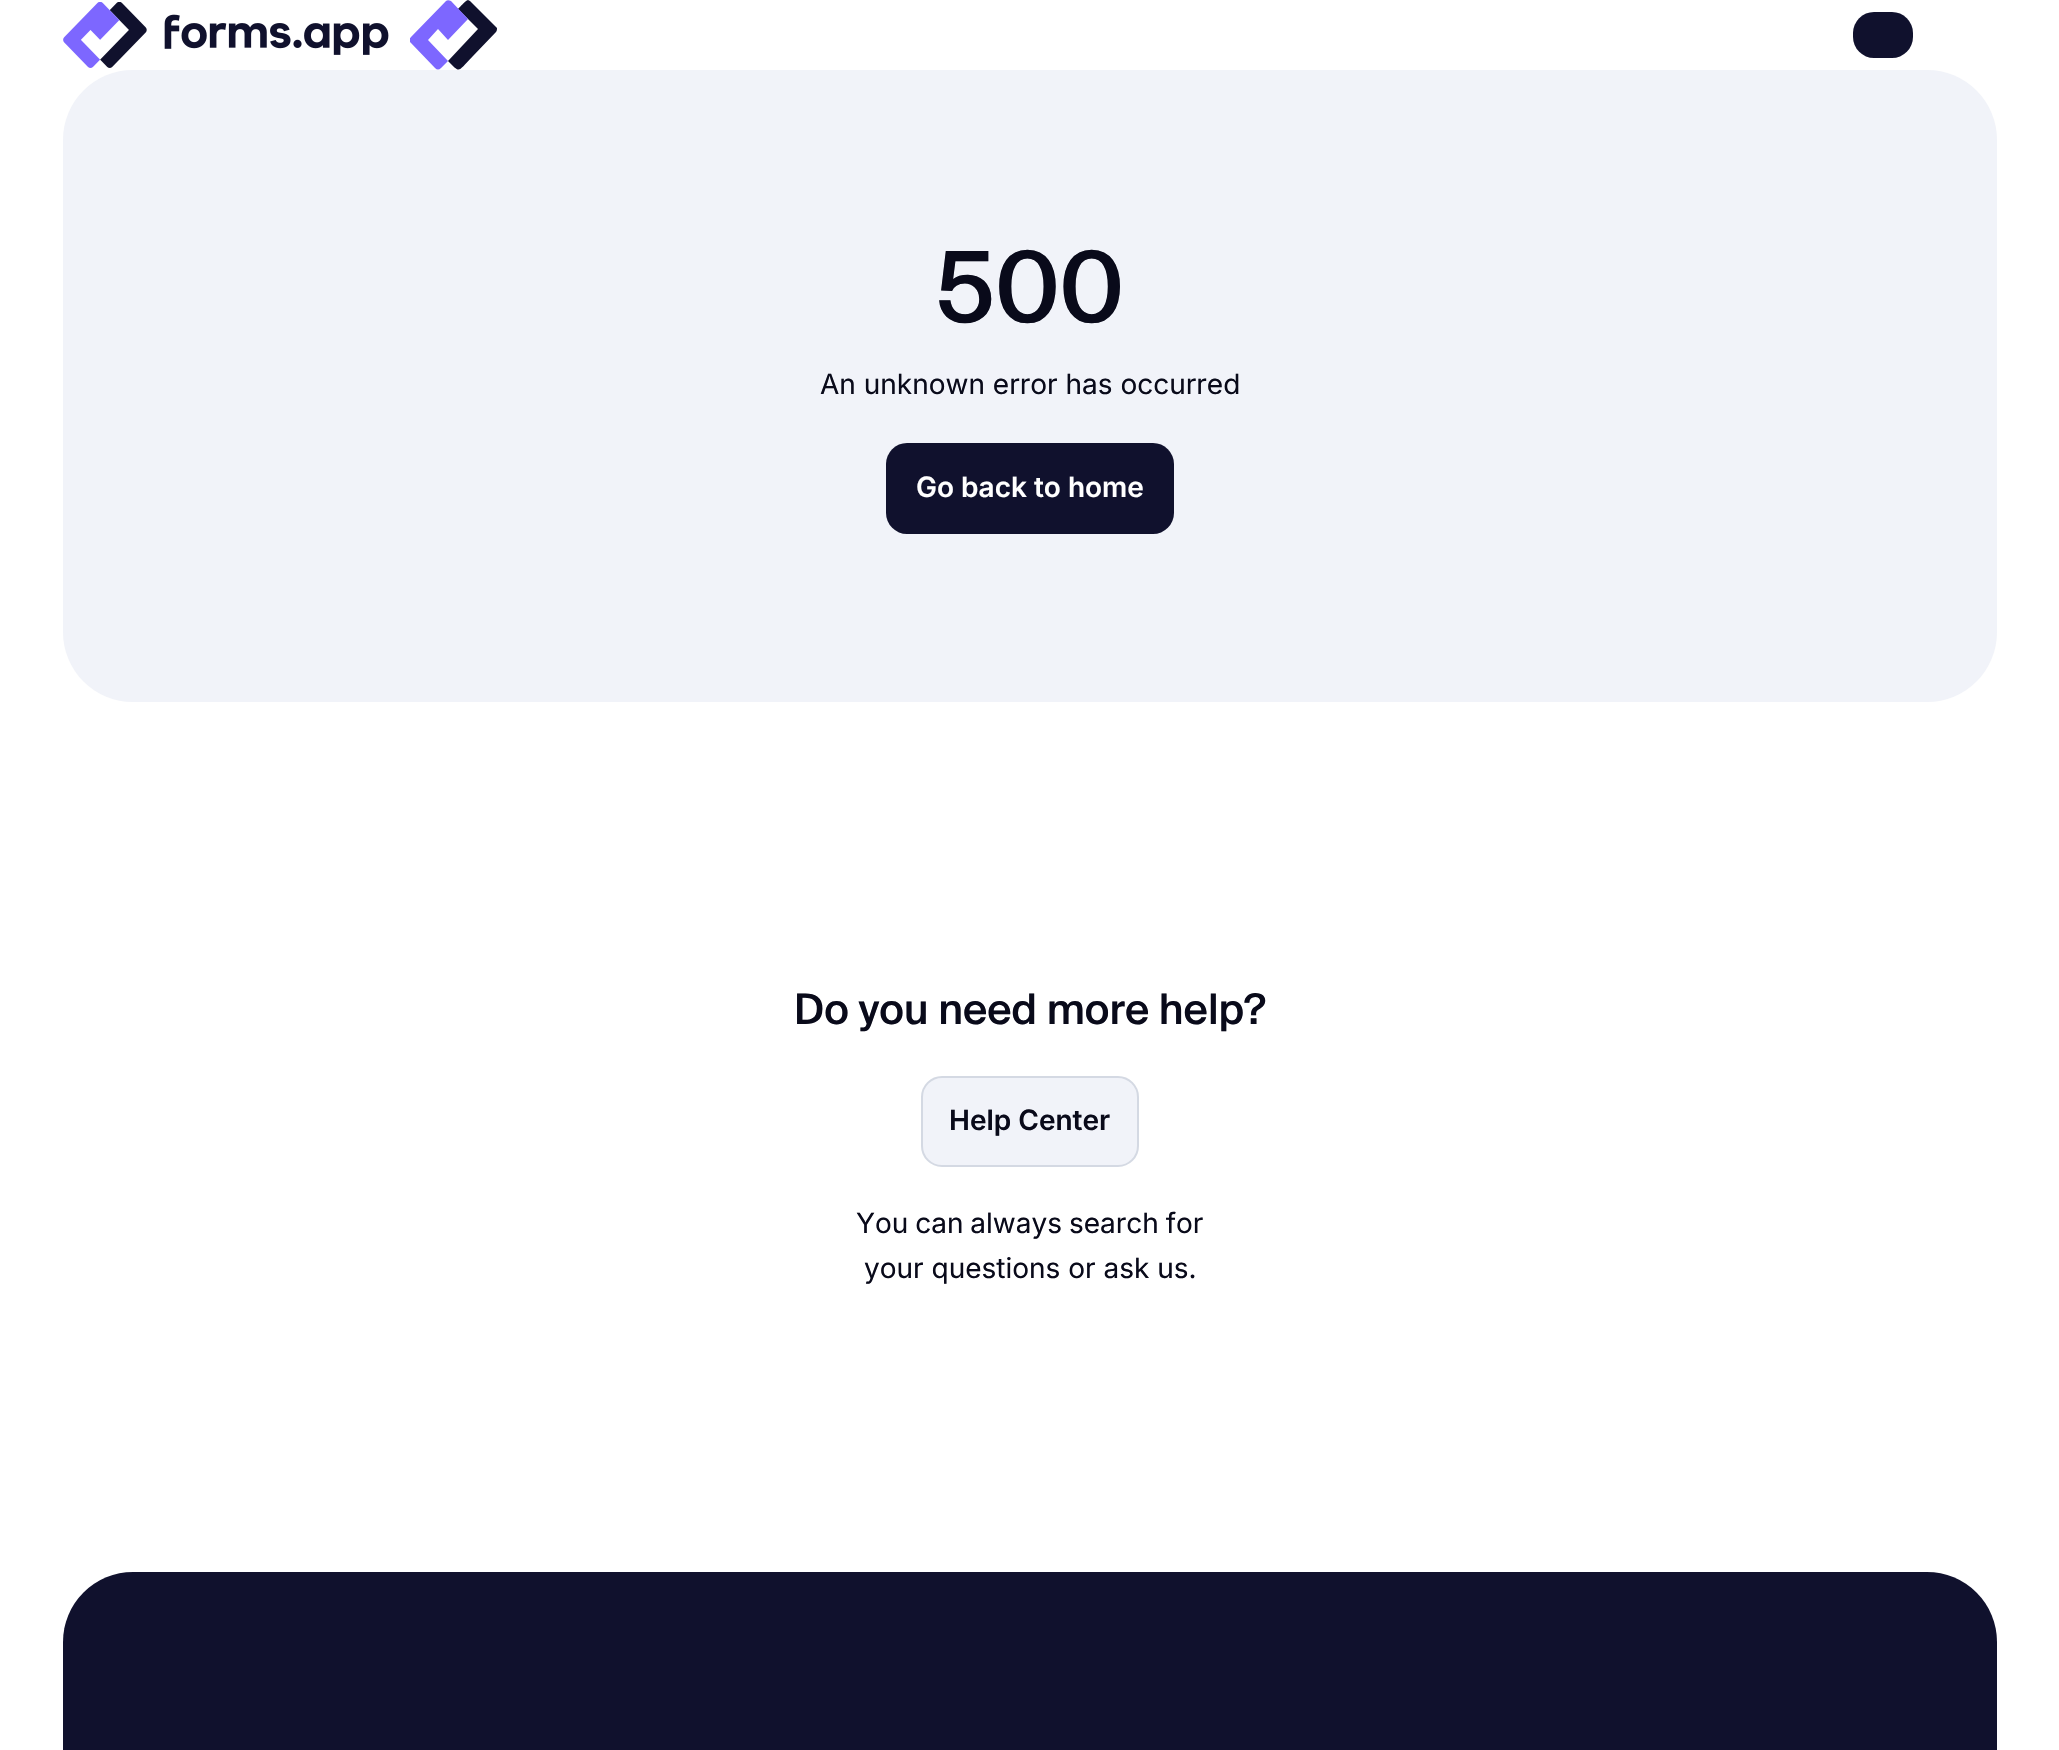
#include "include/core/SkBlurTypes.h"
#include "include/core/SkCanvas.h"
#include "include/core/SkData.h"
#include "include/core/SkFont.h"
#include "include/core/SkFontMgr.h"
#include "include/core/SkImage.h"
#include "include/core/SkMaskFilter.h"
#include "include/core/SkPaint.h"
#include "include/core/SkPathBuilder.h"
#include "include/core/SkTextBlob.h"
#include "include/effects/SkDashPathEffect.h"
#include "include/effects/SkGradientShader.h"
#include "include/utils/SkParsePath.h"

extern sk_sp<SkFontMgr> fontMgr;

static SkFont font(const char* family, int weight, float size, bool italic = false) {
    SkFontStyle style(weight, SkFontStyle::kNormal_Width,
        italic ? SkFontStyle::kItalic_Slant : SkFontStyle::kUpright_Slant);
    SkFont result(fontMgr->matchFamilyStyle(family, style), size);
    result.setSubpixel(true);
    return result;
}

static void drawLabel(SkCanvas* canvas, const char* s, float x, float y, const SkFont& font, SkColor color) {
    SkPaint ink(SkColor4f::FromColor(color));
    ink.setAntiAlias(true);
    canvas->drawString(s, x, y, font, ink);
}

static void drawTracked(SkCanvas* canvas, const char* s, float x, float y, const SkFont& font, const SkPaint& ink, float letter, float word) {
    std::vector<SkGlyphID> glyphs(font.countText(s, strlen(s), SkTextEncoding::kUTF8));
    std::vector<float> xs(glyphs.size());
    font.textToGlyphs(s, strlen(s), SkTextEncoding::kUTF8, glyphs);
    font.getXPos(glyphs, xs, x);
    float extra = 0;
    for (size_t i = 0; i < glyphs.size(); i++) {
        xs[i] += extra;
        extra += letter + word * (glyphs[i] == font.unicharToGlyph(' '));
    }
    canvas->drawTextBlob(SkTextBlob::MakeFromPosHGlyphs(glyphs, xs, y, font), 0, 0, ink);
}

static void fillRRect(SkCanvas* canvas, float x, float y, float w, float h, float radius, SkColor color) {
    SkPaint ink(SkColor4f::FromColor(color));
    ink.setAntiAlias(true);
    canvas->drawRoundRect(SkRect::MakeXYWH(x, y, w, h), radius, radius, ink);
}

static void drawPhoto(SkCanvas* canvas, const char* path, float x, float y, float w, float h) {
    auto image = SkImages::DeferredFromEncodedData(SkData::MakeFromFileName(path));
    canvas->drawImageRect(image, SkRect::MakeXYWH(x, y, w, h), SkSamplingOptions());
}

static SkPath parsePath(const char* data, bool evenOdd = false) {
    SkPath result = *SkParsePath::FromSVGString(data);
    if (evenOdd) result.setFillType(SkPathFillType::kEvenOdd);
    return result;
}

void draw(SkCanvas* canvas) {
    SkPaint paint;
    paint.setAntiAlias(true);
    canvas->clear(0xFFFFFFFF);
    drawPhoto(canvas, "assets/img1.png", 63, 2, 326, 66);
    paint.setColor(0xFF10112D);
    canvas->drawPath(parsePath("M496 32L473 56C457 72 461 74 448 61L478 29L458 9C460 7 465 1 468 0L470 1L497 28C497 29 497 31 496 32Z"), paint);
    canvas->save();
    canvas->clipRect(SkRect::MakeXYWH(410, 0, 87, 70));
    paint.setColor(0xFF7D67FF);
    canvas->drawPath(parsePath("M438 29L428 40L448 61L441 68C439 70 437 70 435 68L411 43C409 41 409 39 411 37L446 1C447 0 449 0 451 1L468 19L448 40Z"), paint);
    canvas->restore();
    fillRRect(canvas, 1853, 12, 60, 46, 21, 0xFF10112D);
    fillRRect(canvas, 63, 70, 1934, 632, 70, 0xFFF1F3F9);
    SkFont font1 = font("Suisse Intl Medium", 500, 98);
    drawLabel(canvas, "500", 936, 322, font1, 0xFF090A1A);
    SkFont font2 = font("Inter", 400, 28);
    drawLabel(canvas, "An unknown error has occurred", 820, 394, font2, 0xFF090A1A);
    fillRRect(canvas, 886, 443, 288, 91, 21, 0xFF10112D);
    SkFont font3 = font("Inter", 600, 28);
    drawLabel(canvas, "Go back to home", 916, 497, font3, 0xFFFFFFFF);
    SkFont font4 = font("Suisse Intl Medium", 500, 42);
    drawLabel(canvas, "Do you need more help?", 794, 1024, font4, 0xFF090A1A);
    paint.setColor(0xFFF1F3F9);
    canvas->drawRoundRect(SkRect::MakeXYWH(922, 1077, 216, 89), 20, 20, paint);
    paint.setStroke(true);
    paint.setStrokeWidth(2);
    paint.setColor(0xFFD4D9E3);
    canvas->drawRoundRect(SkRect::MakeXYWH(922, 1077, 216, 89), 20, 20, paint);
    drawLabel(canvas, "Help Center", 949, 1130, font3, 0xFF090A1A);
    paint.setStroke(false);
    paint.setColor(0xFF090A1A);
    drawTracked(canvas, "You can always search for", 856, 1233, font2, paint, 0, -1);
    drawLabel(canvas, "your questions or ask us.", 864, 1278, font2, 0xFF090A1A);
    fillRRect(canvas, 63, 1572, 1934, 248, 70, 0xFF10112D);
}
